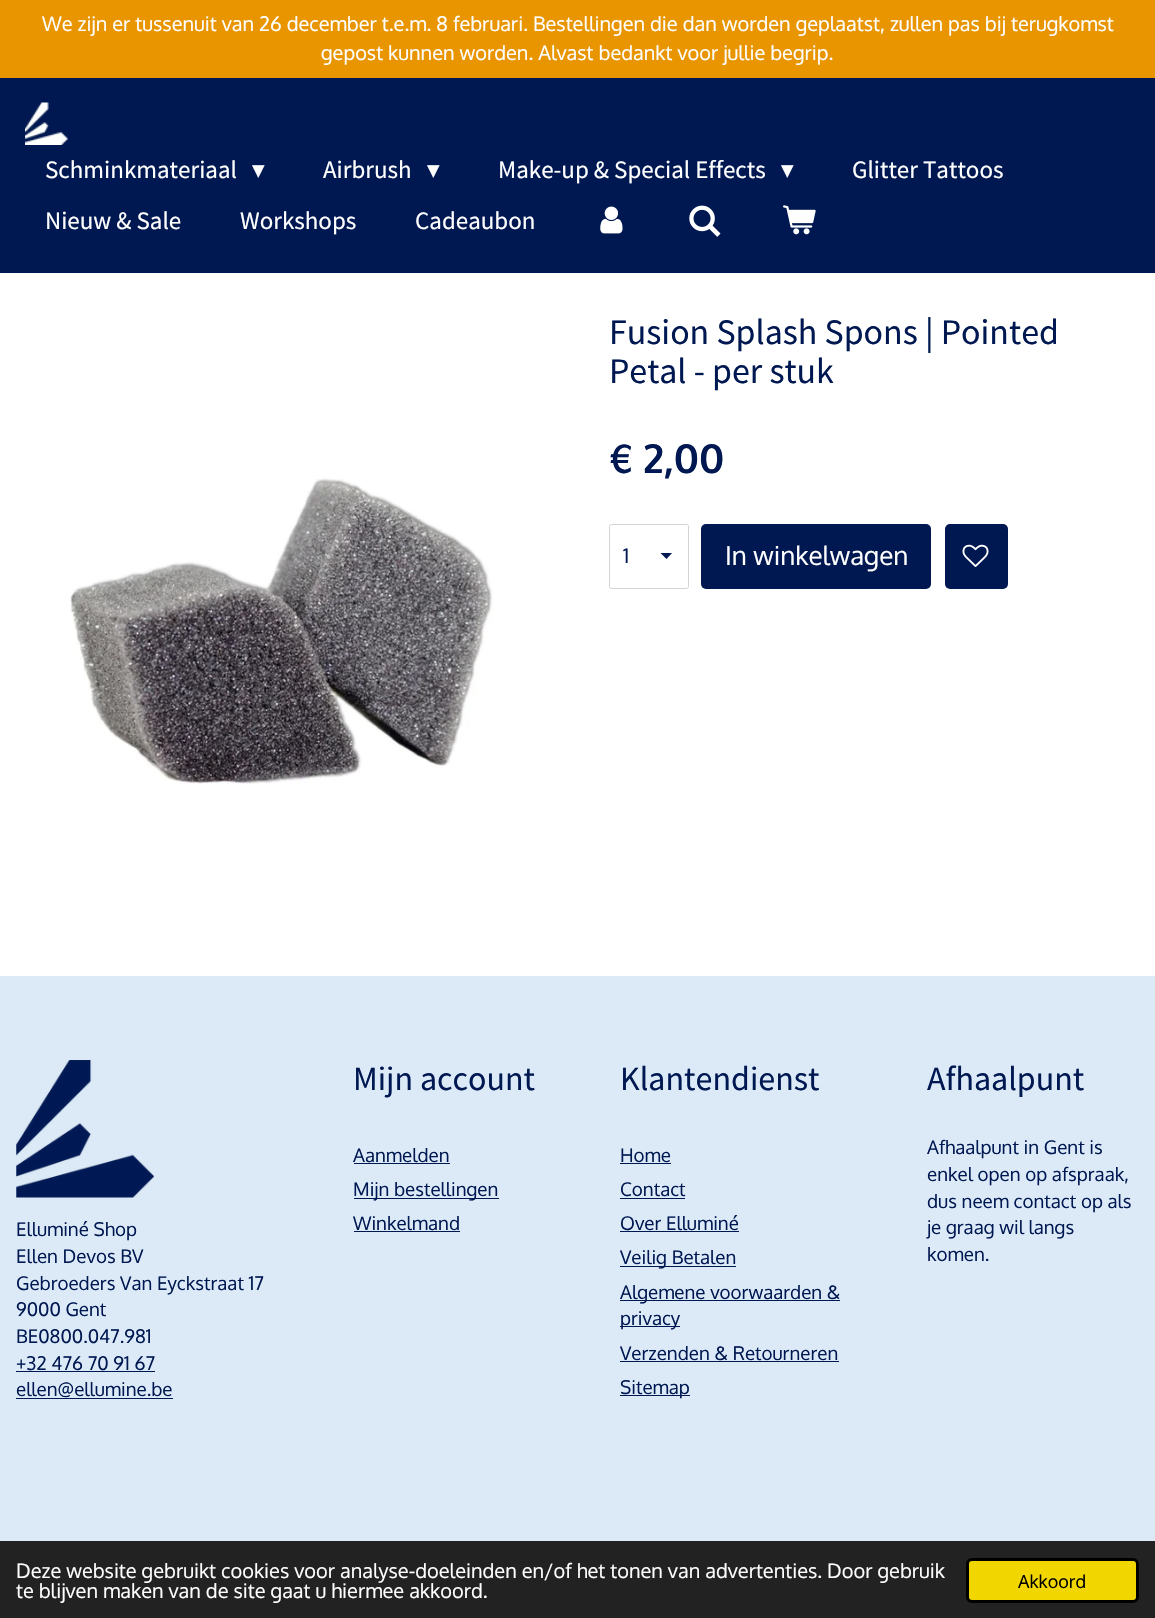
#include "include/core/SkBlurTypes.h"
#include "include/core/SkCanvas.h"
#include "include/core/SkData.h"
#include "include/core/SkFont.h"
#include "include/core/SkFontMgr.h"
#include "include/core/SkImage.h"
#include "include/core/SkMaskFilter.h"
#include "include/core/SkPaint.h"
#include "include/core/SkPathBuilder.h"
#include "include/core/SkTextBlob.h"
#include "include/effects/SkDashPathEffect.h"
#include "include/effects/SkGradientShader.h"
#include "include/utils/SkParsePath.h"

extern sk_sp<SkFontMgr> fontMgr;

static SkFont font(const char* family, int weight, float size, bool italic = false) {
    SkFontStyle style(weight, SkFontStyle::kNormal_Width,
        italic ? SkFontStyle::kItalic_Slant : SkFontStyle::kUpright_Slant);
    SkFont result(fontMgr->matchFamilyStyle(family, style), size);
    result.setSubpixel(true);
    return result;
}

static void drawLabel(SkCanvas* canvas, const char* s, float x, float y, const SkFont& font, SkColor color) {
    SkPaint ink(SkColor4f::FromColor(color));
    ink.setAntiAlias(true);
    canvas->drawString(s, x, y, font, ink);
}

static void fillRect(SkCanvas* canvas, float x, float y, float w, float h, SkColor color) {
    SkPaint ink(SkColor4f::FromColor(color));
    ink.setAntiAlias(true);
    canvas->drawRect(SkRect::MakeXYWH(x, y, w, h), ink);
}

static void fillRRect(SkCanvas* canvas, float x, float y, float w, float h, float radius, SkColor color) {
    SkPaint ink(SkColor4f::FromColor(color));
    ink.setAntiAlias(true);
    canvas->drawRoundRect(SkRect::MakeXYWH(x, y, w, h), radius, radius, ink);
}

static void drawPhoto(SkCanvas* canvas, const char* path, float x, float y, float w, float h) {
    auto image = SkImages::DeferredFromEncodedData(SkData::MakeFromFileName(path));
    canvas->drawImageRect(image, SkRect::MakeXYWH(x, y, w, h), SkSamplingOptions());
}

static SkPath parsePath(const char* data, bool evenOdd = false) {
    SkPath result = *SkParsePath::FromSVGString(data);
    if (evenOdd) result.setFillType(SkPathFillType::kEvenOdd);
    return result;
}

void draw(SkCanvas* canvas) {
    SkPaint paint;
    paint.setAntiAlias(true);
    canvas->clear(0xFF001851);
    fillRect(canvas, 0, 0, 1155, 78, 0xFFE89500);
    SkFont font1 = font("Oxygen", 400, 20);
    drawLabel(canvas, "We zijn er tussenuit van 26 december t.e.m. 8 februari. Bestellingen die dan worden geplaatst, zullen pas bij terugkomst", 42, 31, font1, 0xFFFFFFFF);
    drawLabel(canvas, "gepost kunnen worden. Alvast bedankt voor jullie begrip.", 321, 60, font1, 0xFFFFFFFF);
    drawPhoto(canvas, "assets/img1.png", 25, 102, 43, 43);
    SkFont font2 = font("Source Sans Pro", 400, 25);
    drawLabel(canvas, "Schminkmateriaal", 45, 178, font2, 0xFFFFFFFF);
    SkFont font3 = font("DejaVu Sans", 400, 25);
    drawLabel(canvas, "▾", 252, 178, font3, 0xFFFFFFFF);
    drawLabel(canvas, "Airbrush", 323, 178, font2, 0xFFFFFFFF);
    drawLabel(canvas, "▾", 427, 178, font3, 0xFFFFFFFF);
    drawLabel(canvas, "Make-up & Special Effects", 498, 178, font2, 0xFFFFFFFF);
    drawLabel(canvas, "▾", 781, 178, font3, 0xFFFFFFFF);
    drawLabel(canvas, "Glitter Tattoos", 852, 178, font2, 0xFFFFFFFF);
    drawLabel(canvas, "Nieuw & Sale", 45, 229, font2, 0xFFFFFFFF);
    drawLabel(canvas, "Workshops", 240, 229, font2, 0xFFFFFFFF);
    drawLabel(canvas, "Cadeaubon", 415, 229, font2, 0xFFFFFFFF);
    drawPhoto(canvas, "assets/img2.png", 600, 206, 23, 28);
    drawPhoto(canvas, "assets/img3.png", 689, 205, 32, 32);
    drawPhoto(canvas, "assets/img4.png", 783, 205, 33, 30);
    fillRect(canvas, 0, 273, 1155, 703, 0xFFFFFFFF);
    SkFont font4 = font("Source Sans Pro", 400, 35.9f);
    drawLabel(canvas, "Fusion Splash Spons | Pointed", 609, 344, font4, 0xFF001851);
    drawLabel(canvas, "Petal - per stuk", 609, 383, font4, 0xFF001851);
    drawPhoto(canvas, "assets/img5.png", 70, 478, 423, 306);
    SkFont font5 = font("Oxygen", 700, 40);
    drawLabel(canvas, "€ 2,00", 609, 473, font5, 0xFF001851);
    canvas->save();
    canvas->clipRect(SkRect::MakeXYWH(660, 553, 14, 7));
    paint.setColor(0xFF001851);
    canvas->drawPath(parsePath("M666.5 559L660 552.5H672.5Z"), paint);
    canvas->restore();
    paint.setStroke(true);
    paint.setStrokeWidth(1);
    paint.setColor(0xFFD3D3D3);
    canvas->drawRoundRect(SkRect::MakeXYWH(609.5f, 524.5f, 79, 64), 2, 2, paint);
    drawLabel(canvas, "1", 623, 563, font1, 0xFF001851);
    fillRRect(canvas, 701, 524, 230, 65, 5, 0xFF001851);
    SkFont font6 = font("Oxygen", 400, 26);
    drawLabel(canvas, "In winkelwagen", 725, 565, font6, 0xFFFFFFFF);
    fillRRect(canvas, 945, 524, 63, 65, 5, 0xFF001851);
    drawPhoto(canvas, "assets/img6.png", 962, 544, 27, 23);
    fillRect(canvas, 0, 976, 1155, 565, 0xFFDCEAF8);
    SkFont font7 = font("Source Sans Pro", 400, 34);
    drawLabel(canvas, "Mijn account", 353, 1090, font7, 0xFF001851);
    SkFont font8 = font("Oxygen", 400, 18.75f);
    drawLabel(canvas, "Aanmelden", 353, 1162, font8, 0xFF001851);
    fillRect(canvas, 354, 1163, 96, 1, 0xFF001851);
    fillRect(canvas, 354, 1198, 145, 1, 0xFF001851);
    drawLabel(canvas, "Mijn bestellingen", 353, 1196, font8, 0xFF001851);
    drawLabel(canvas, "Winkelmand", 353, 1230, font8, 0xFF001851);
    fillRect(canvas, 354, 1231, 106, 1, 0xFF001851);
    drawLabel(canvas, "Klantendienst", 620, 1090, font7, 0xFF001851);
    drawLabel(canvas, "Home", 620, 1162, font8, 0xFF001851);
    fillRect(canvas, 620, 1163, 51, 1, 0xFF001851);
    drawLabel(canvas, "Contact", 620, 1196, font8, 0xFF001851);
    fillRect(canvas, 620, 1198, 65, 1, 0xFF001851);
    drawLabel(canvas, "Over Elluminé", 620, 1230, font8, 0xFF001851);
    fillRect(canvas, 620, 1231, 119, 1, 0xFF001851);
    fillRect(canvas, 620, 1266, 116, 1, 0xFF001851);
    drawLabel(canvas, "Veilig Betalen", 620, 1264, font8, 0xFF001851);
    fillRect(canvas, 620, 1300, 220, 1, 0xFF001851);
    drawLabel(canvas, "Algemene voorwaarden &", 620, 1299, font8, 0xFF001851);
    fillRect(canvas, 620, 1326, 60, 1, 0xFF001851);
    drawLabel(canvas, "privacy", 620, 1325, font8, 0xFF001851);
    drawLabel(canvas, "Verzenden & Retourneren", 620, 1360, font8, 0xFF001851);
    fillRect(canvas, 620, 1361, 219, 1, 0xFF001851);
    fillRect(canvas, 620, 1395, 70, 1, 0xFF001851);
    drawLabel(canvas, "Sitemap", 620, 1394, font8, 0xFF001851);
    drawLabel(canvas, "Afhaalpunt", 927, 1090, font7, 0xFF001851);
    drawLabel(canvas, "Afhaalpunt in Gent is", 927, 1154, font8, 0xFF001851);
    drawLabel(canvas, "enkel open op afspraak,", 927, 1181, font8, 0xFF001851);
    drawLabel(canvas, "dus neem contact op als", 927, 1208, font8, 0xFF001851);
    drawLabel(canvas, "je graag wil langs", 927, 1234, font8, 0xFF001851);
    drawLabel(canvas, "komen.", 927, 1261, font8, 0xFF001851);
    drawPhoto(canvas, "assets/img7.png", 16, 1060, 138, 138);
    drawLabel(canvas, "Elluminé Shop", 16, 1236, font8, 0xFF001851);
    drawLabel(canvas, "Ellen Devos BV", 16, 1263, font8, 0xFF001851);
    drawLabel(canvas, "Gebroeders Van Eyckstraat 17", 16, 1290, font8, 0xFF001851);
    drawLabel(canvas, "9000 Gent", 16, 1316, font8, 0xFF001851);
    drawLabel(canvas, "BE0800.047.981", 16, 1343, font8, 0xFF001851);
    drawLabel(canvas, "+32 476 70 91 67", 16, 1370, font8, 0xFF001851);
    fillRect(canvas, 16, 1371, 139, 1, 0xFF001851);
    drawLabel(canvas, "ellen@ellumine.be", 16, 1396, font8, 0xFF001851);
    fillRect(canvas, 16, 1398, 157, 1, 0xFF001851);
    fillRect(canvas, 0, 1541, 1155, 77, 0xFF222222);
    drawLabel(canvas, "Deze website gebruikt cookies voor analyse-doeleinden en/of het tonen van advertenties. Door gebruik", 16, 1578, font1, 0xFFFFFFFF);
    drawLabel(canvas, "te blijven maken van de site gaat u hiermee akkoord.", 16, 1598, font1, 0xFFFFFFFF);
    paint.setStroke(false);
    paint.setColor(0xFFF1D600);
    canvas->drawRoundRect(SkRect::MakeXYWH(967.5f, 1559.5f, 170, 42), 4.5f, 4.5f, paint);
    paint.setStroke(true);
    paint.setStrokeWidth(3);
    paint.setColor(0xFF000000);
    canvas->drawRoundRect(SkRect::MakeXYWH(967.5f, 1559.5f, 170, 42), 4.5f, 4.5f, paint);
    SkFont font9 = font("Oxygen", 400, 18);
    drawLabel(canvas, "Akkoord", 1018, 1588, font9, 0xFF000000);
}
